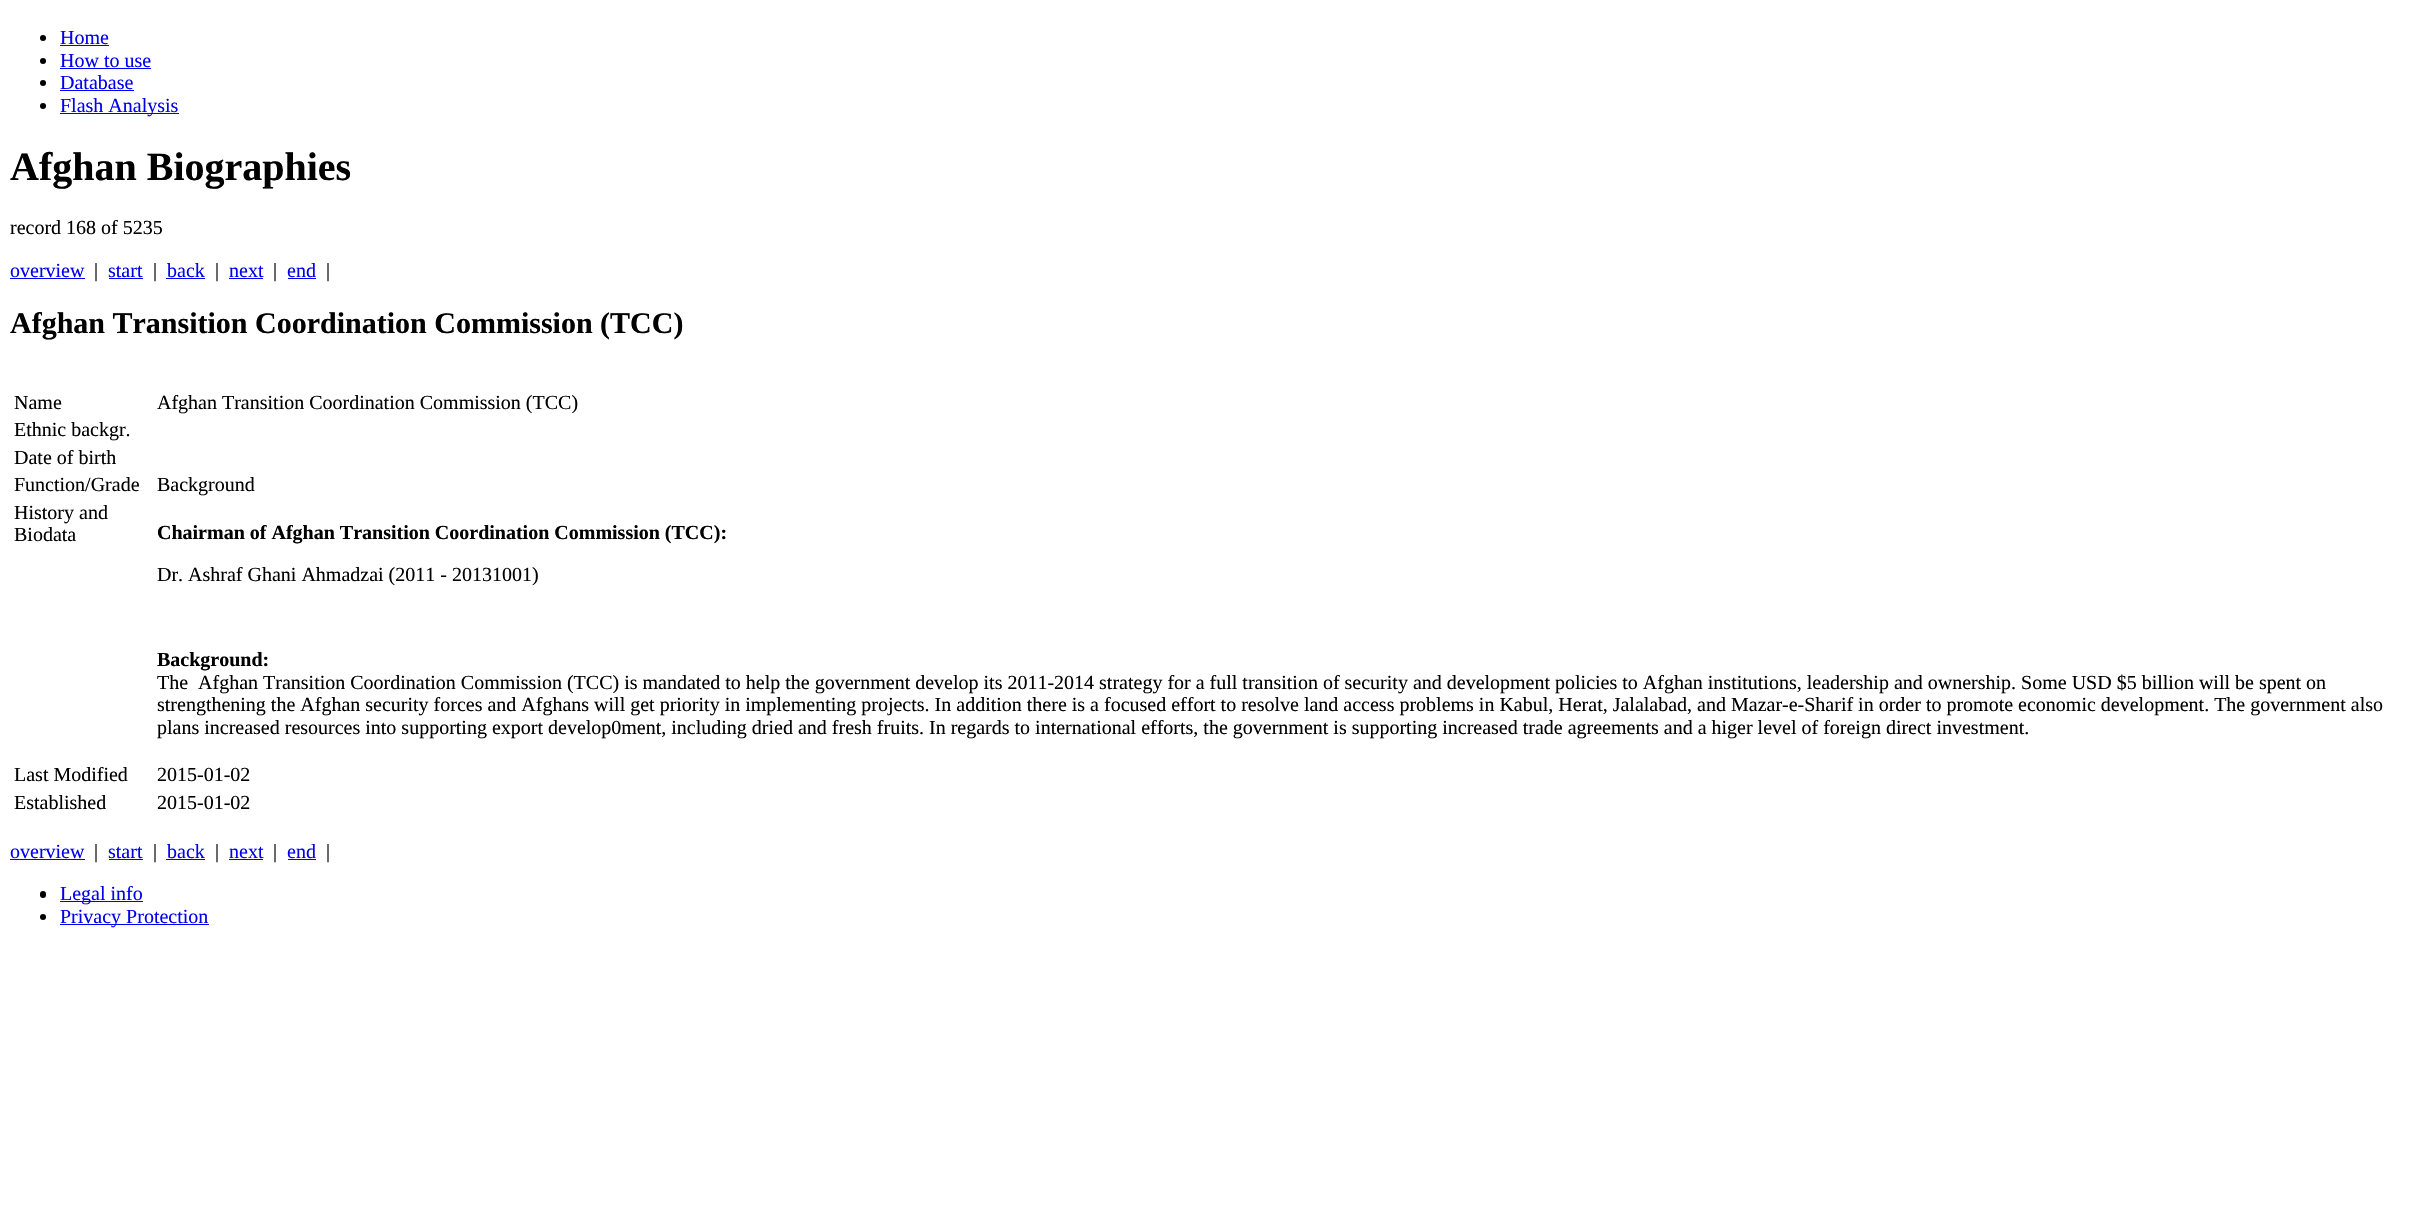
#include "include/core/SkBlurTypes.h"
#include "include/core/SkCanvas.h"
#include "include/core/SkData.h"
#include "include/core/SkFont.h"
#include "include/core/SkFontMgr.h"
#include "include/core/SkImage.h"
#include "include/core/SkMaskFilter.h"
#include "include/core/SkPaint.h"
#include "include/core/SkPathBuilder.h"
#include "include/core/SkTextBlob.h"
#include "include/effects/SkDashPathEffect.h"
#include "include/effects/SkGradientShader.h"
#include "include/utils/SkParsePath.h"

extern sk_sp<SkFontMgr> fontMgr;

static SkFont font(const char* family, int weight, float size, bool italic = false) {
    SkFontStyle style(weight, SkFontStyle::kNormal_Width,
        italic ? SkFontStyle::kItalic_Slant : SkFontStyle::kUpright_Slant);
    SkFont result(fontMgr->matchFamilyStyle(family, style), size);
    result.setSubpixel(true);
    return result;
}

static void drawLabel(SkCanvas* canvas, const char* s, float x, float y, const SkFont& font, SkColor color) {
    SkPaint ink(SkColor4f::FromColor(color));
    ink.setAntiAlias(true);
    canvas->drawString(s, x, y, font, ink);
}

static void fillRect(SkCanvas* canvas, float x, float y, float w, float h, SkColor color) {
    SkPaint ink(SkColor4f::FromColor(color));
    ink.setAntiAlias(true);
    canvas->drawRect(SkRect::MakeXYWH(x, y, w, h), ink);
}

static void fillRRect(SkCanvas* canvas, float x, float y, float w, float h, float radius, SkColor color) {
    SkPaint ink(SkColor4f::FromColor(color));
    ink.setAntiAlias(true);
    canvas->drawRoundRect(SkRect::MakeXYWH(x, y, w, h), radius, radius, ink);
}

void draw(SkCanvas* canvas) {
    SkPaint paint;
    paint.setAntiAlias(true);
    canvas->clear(0xFFFFFFFF);
    paint.setColor(0xFF000000);
    canvas->drawCircle(43, 38, 3, paint);
    SkFont font1 = font("Liberation Serif", 400, 20);
    drawLabel(canvas, "Home", 60, 44, font1, 0xFF0000EE);
    fillRect(canvas, 60, 45, 49, 1, 0xFF0000EE);
    canvas->drawCircle(43, 61, 3, paint);
    drawLabel(canvas, "How to use", 60, 67, font1, 0xFF0000EE);
    fillRect(canvas, 60, 68, 91, 1, 0xFF0000EE);
    canvas->drawCircle(43, 83, 3, paint);
    drawLabel(canvas, "Database", 60, 89, font1, 0xFF0000EE);
    fillRect(canvas, 60, 90, 74, 1, 0xFF0000EE);
    canvas->drawCircle(43, 106, 3, paint);
    fillRect(canvas, 60, 113, 119, 1, 0xFF0000EE);
    drawLabel(canvas, "Flash Analysis", 60, 112, font1, 0xFF0000EE);
    SkFont font2 = font("Liberation Serif", 700, 40);
    drawLabel(canvas, "Afghan Biographies", 10, 180, font2, 0xFF000000);
    drawLabel(canvas, "record 168 of 5235", 10, 234, font1, 0xFF000000);
    drawLabel(canvas, "overview", 10, 277, font1, 0xFF0000EE);
    fillRect(canvas, 10, 278, 75, 1, 0xFF0000EE);
    drawLabel(canvas, "|", 94, 277, font1, 0xFF000000);
    drawLabel(canvas, "start", 108, 277, font1, 0xFF0000EE);
    fillRect(canvas, 109, 278, 34, 1, 0xFF0000EE);
    drawLabel(canvas, "|", 153, 277, font1, 0xFF000000);
    drawLabel(canvas, "back", 167, 277, font1, 0xFF0000EE);
    fillRect(canvas, 166, 278, 39, 1, 0xFF0000EE);
    drawLabel(canvas, "|", 215, 277, font1, 0xFF000000);
    drawLabel(canvas, "next", 229, 277, font1, 0xFF0000EE);
    fillRect(canvas, 229, 278, 34, 1, 0xFF0000EE);
    drawLabel(canvas, "|", 273, 277, font1, 0xFF000000);
    drawLabel(canvas, "end", 287, 277, font1, 0xFF0000EE);
    fillRect(canvas, 288, 278, 28, 1, 0xFF0000EE);
    drawLabel(canvas, "|", 326, 277, font1, 0xFF000000);
    SkFont font3 = font("Liberation Serif", 700, 30);
    drawLabel(canvas, "Afghan Transition Coordination Commission (TCC)", 10, 333, font3, 0xFF000000);
    drawLabel(canvas, "Name", 14, 409, font1, 0xFF000000);
    drawLabel(canvas, "Afghan Transition Coordination Commission (TCC)", 157, 409, font1, 0xFF000000);
    drawLabel(canvas, "Ethnic backgr.", 14, 436, font1, 0xFF000000);
    drawLabel(canvas, "Date of birth", 14, 464, font1, 0xFF000000);
    drawLabel(canvas, "Function/Grade", 14, 491, font1, 0xFF000000);
    drawLabel(canvas, "Background", 157, 491, font1, 0xFF000000);
    drawLabel(canvas, "History and", 14, 519, font1, 0xFF000000);
    drawLabel(canvas, "Biodata", 14, 541, font1, 0xFF000000);
    SkFont font4 = font("Liberation Serif", 700, 20);
    drawLabel(canvas, "Chairman of Afghan Transition Coordination Commission (TCC):", 157, 539, font4, 0xFF000000);
    drawLabel(canvas, "Dr. Ashraf Ghani Ahmadzai (2011 - 20131001)", 157, 581, font1, 0xFF000000);
    drawLabel(canvas, "Background:", 157, 666, font4, 0xFF000000);
    drawLabel(canvas, "The  Afghan Transition Coordination Commission (TCC) is mandated to help the government develop its 2011-2014 strategy for a full transition of security and development policies to Afghan institutions, leadership and ownership. Some USD $5 billion will be spent on", 157, 689, font1, 0xFF000000);
    drawLabel(canvas, "strengthening the Afghan security forces and Afghans will get priority in implementing projects. In addition there is a focused effort to resolve land access problems in Kabul, Herat, Jalalabad, and Mazar-e-Sharif in order to promote economic development. The government also", 157, 711, font1, 0xFF000000);
    drawLabel(canvas, "plans increased resources into supporting export develop0ment, including dried and fresh fruits. In regards to international efforts, the government is supporting increased trade agreements and a higer level of foreign direct investment.", 157, 734, font1, 0xFF000000);
    drawLabel(canvas, "Last Modified", 14, 781, font1, 0xFF000000);
    drawLabel(canvas, "2015-01-02", 157, 781, font1, 0xFF000000);
    drawLabel(canvas, "Established", 14, 809, font1, 0xFF000000);
    drawLabel(canvas, "2015-01-02", 157, 809, font1, 0xFF000000);
    drawLabel(canvas, "overview", 10, 858, font1, 0xFF0000EE);
    fillRect(canvas, 10, 859, 75, 1, 0xFF0000EE);
    drawLabel(canvas, "|", 94, 858, font1, 0xFF000000);
    drawLabel(canvas, "start", 108, 858, font1, 0xFF0000EE);
    fillRect(canvas, 109, 859, 34, 1, 0xFF0000EE);
    drawLabel(canvas, "|", 153, 858, font1, 0xFF000000);
    drawLabel(canvas, "back", 167, 858, font1, 0xFF0000EE);
    fillRect(canvas, 166, 859, 39, 1, 0xFF0000EE);
    drawLabel(canvas, "|", 215, 858, font1, 0xFF000000);
    drawLabel(canvas, "next", 229, 858, font1, 0xFF0000EE);
    fillRect(canvas, 229, 859, 34, 1, 0xFF0000EE);
    drawLabel(canvas, "|", 273, 858, font1, 0xFF000000);
    drawLabel(canvas, "end", 287, 858, font1, 0xFF0000EE);
    fillRect(canvas, 288, 859, 28, 1, 0xFF0000EE);
    drawLabel(canvas, "|", 326, 858, font1, 0xFF000000);
    fillRRect(canvas, 40, 891, 6, 7, 3, 0xFF000000);
    fillRect(canvas, 60, 901, 83, 1, 0xFF0000EE);
    drawLabel(canvas, "Legal info", 60, 900, font1, 0xFF0000EE);
    canvas->drawCircle(43, 917, 3, paint);
    fillRect(canvas, 60, 924, 149, 1, 0xFF0000EE);
    drawLabel(canvas, "Privacy Protection", 60, 923, font1, 0xFF0000EE);
}
